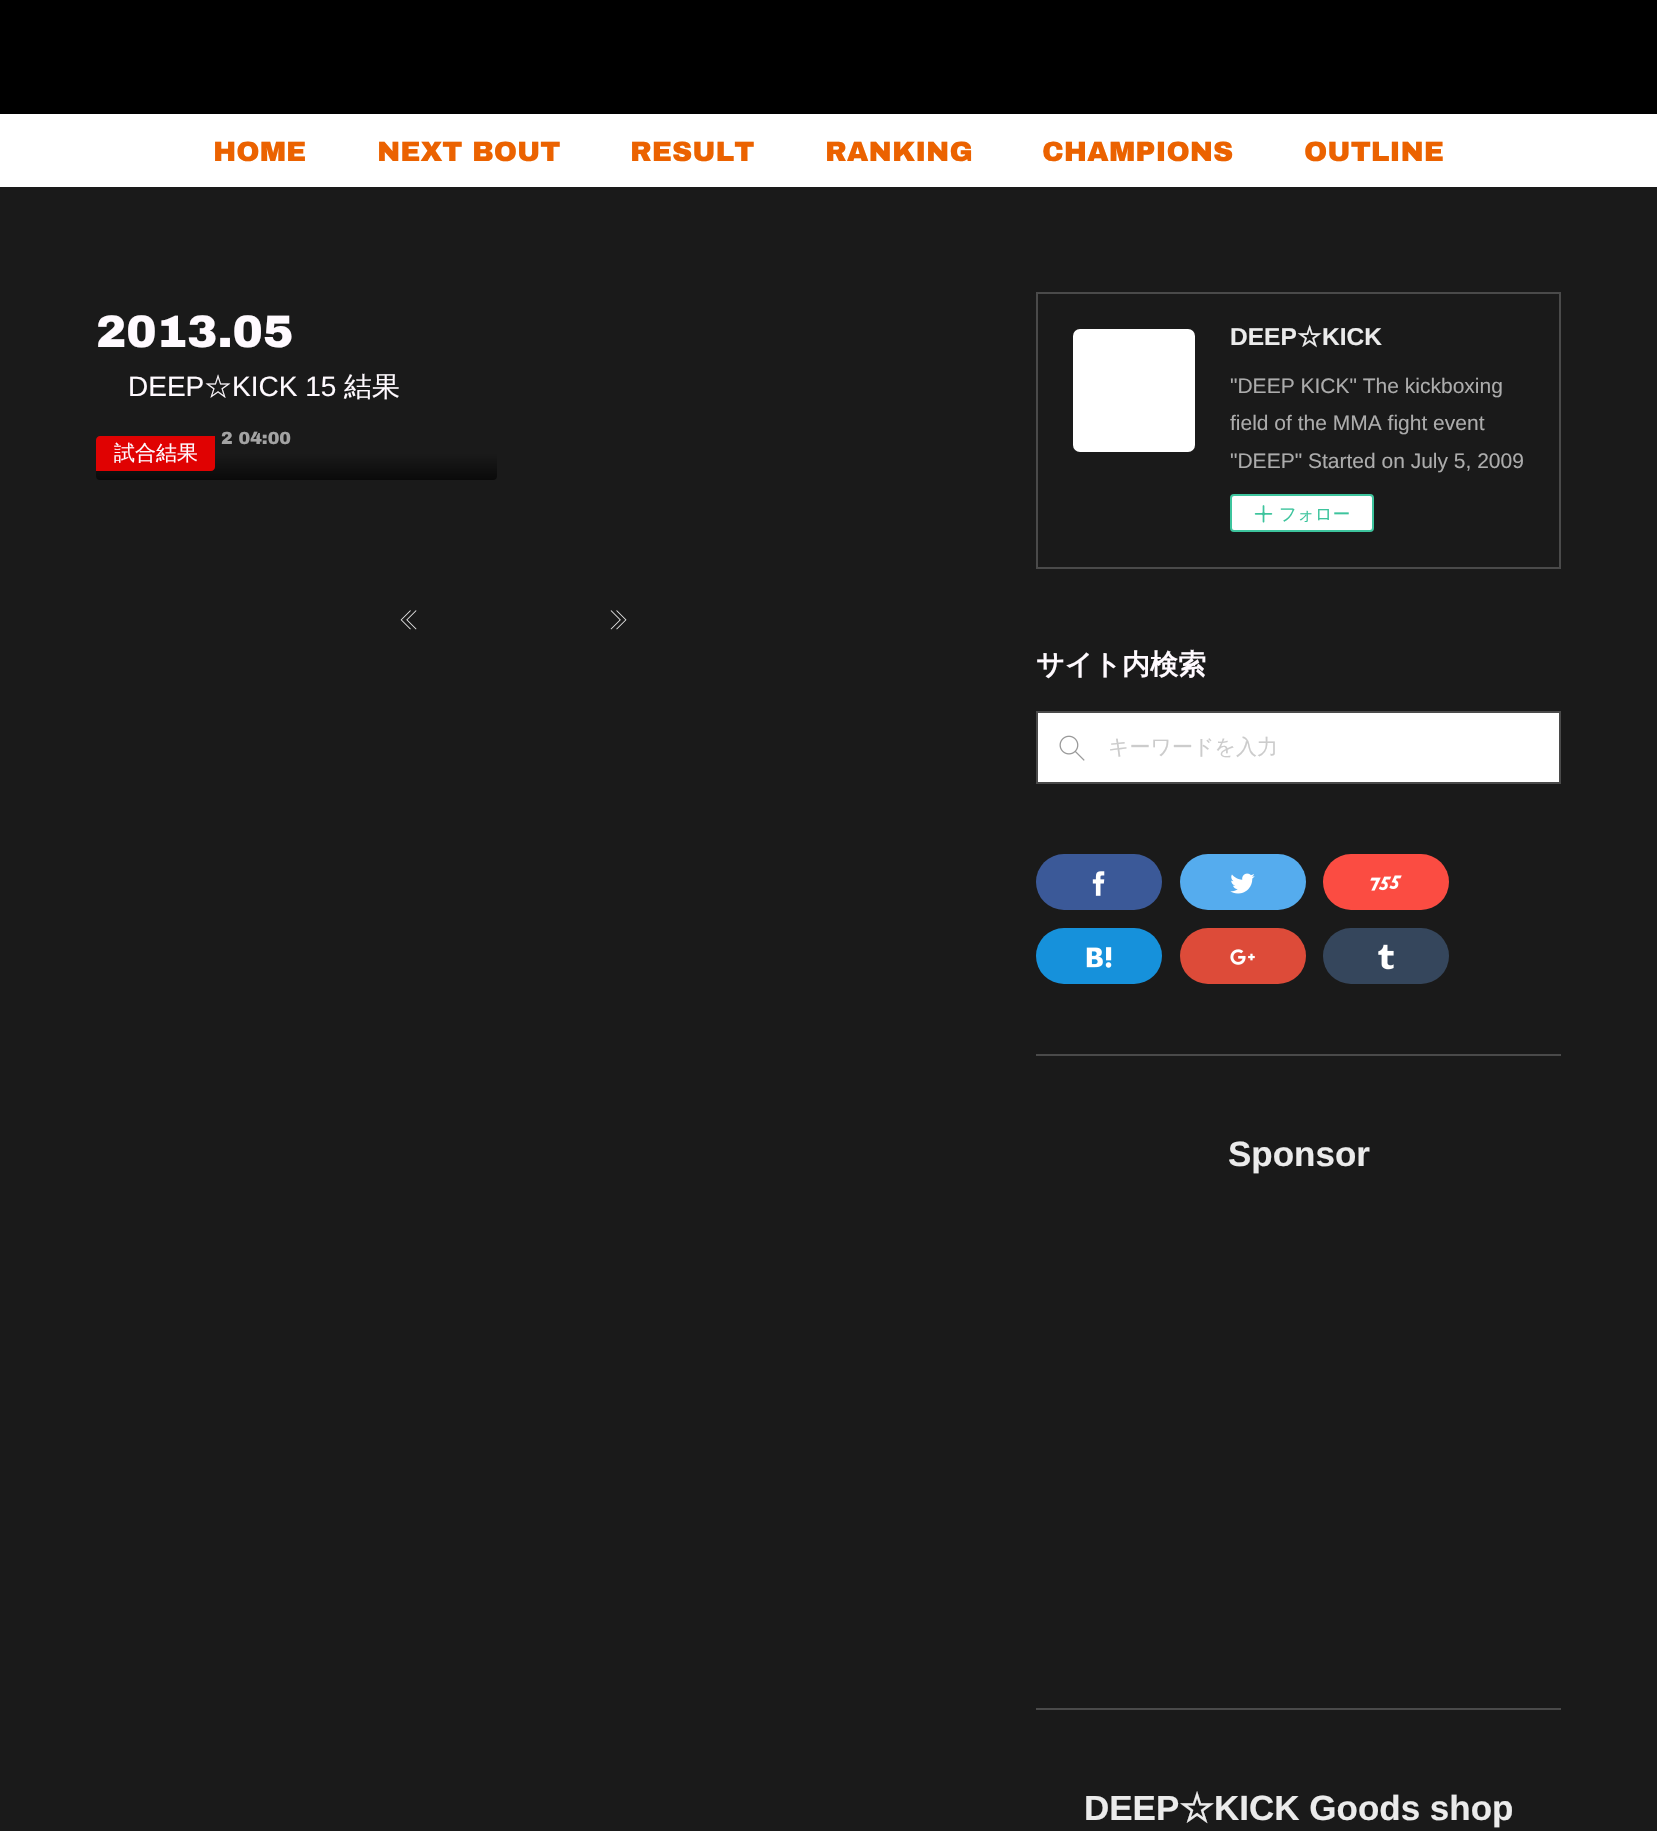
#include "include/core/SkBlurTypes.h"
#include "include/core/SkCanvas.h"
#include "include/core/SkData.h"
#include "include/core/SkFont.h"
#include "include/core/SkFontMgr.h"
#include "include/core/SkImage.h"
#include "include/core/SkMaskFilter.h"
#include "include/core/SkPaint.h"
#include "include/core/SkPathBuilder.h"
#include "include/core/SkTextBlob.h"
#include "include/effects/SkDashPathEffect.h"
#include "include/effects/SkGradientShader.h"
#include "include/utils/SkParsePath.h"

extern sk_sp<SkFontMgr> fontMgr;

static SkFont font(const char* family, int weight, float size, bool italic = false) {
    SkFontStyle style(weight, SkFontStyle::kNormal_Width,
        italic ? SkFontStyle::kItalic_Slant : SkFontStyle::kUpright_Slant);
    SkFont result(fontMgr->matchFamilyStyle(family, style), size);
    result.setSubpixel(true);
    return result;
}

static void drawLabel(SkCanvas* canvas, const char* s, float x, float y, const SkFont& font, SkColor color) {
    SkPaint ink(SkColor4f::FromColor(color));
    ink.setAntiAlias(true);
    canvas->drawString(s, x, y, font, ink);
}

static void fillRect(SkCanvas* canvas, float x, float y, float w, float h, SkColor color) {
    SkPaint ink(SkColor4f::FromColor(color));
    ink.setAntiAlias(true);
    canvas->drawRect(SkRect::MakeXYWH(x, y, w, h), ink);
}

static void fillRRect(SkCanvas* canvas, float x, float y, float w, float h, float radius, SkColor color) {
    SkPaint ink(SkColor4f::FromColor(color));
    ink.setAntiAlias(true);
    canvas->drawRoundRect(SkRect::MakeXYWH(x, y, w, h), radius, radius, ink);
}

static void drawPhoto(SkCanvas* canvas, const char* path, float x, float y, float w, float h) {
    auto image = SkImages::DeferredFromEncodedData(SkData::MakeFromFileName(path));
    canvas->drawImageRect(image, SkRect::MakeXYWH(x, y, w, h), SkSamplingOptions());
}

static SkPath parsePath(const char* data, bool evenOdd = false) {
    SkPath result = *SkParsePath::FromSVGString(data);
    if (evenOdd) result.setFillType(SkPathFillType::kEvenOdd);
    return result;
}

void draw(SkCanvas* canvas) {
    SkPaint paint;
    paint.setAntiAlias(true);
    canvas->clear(0xFF1A1A1A);
    fillRect(canvas, 0, 0, 1657, 114, 0xFF000000);
    fillRect(canvas, 0, 114, 1657, 73, 0xFFFFFFFF);
    SkFont font1 = font("Archivo Black", 900, 28);
    drawLabel(canvas, "HOME", 213, 161, font1, 0xFFEB6200);
    drawLabel(canvas, "NEXT BOUT", 377, 161, font1, 0xFFEB6200);
    drawLabel(canvas, "RESULT", 630, 161, font1, 0xFFEB6200);
    drawLabel(canvas, "RANKING", 825, 161, font1, 0xFFEB6200);
    drawLabel(canvas, "CHAMPIONS", 1042, 161, font1, 0xFFEB6200);
    drawLabel(canvas, "OUTLINE", 1304, 161, font1, 0xFFEB6200);
    SkFont font2 = font("Archivo Black", 900, 45.5f);
    drawLabel(canvas, "2013.05", 96, 347, font2, 0xFFFFFAFF);
    SkFont font3 = font("Liberation Sans", 400, 28);
    drawLabel(canvas, "DEEP", 128, 396, font3, 0xFFFFFAFF);
    SkFont font4 = font("WenQuanYi Zen Hei", 500, 28);
    drawLabel(canvas, "☆", 204, 396, font4, 0xFFFFFAFF);
    drawLabel(canvas, "KICK 15", 232, 396, font3, 0xFFFFFAFF);
    drawLabel(canvas, "結果", 344, 396, font4, 0xFFFFFAFF);
    {
        const SkColor colors[] = {0xFF0A0A0A, 0xFF1A1A1A};
        const float stops[] = {0, 0.6f};
        const SkPoint ends[] = {{297, 480}, {297, 436}};
        paint.setShader(SkGradientShader::MakeLinear(ends, colors, stops, 2, SkTileMode::kClamp));
        paint.setAlpha(255);
    }
    canvas->drawRoundRect(SkRect::MakeXYWH(96, 436, 401, 44), 4, 4, paint);
    SkFont font5 = font("Archivo Black", 900, 17.5f);
    drawLabel(canvas, "2 04:00", 221, 444, font5, 0xFFA3A3A3);
    paint.setShader(nullptr);
    paint.setColor(0xFFE00202);
    canvas->drawPath(parsePath("M100 436H215V467C215 469 213 471 211 471H96V440C96 438 98 436 100 436Z"), paint);
    SkFont font6 = font("WenQuanYi Zen Hei", 500, 21);
    drawLabel(canvas, "試合結果", 114, 460, font6, 0xFFFFFAFF);
    drawPhoto(canvas, "assets/img1.png", 400, 610, 17, 20);
    drawPhoto(canvas, "assets/img2.png", 610, 610, 17, 20);
    paint.setStroke(true);
    paint.setStrokeWidth(2);
    paint.setColor(0xFF4A4A4A);
    canvas->drawRect(SkRect::MakeXYWH(1037, 293, 523, 275), paint);
    fillRRect(canvas, 1073, 329, 122, 123, 7, 0xFFFFFFFF);
    SkFont font7 = font("Liberation Sans", 700, 24.5f);
    drawLabel(canvas, "DEEP", 1230, 345, font7, 0xFFEBEBEB);
    SkFont font8 = font("WenQuanYi Zen Hei", 700, 24.5f);
    drawLabel(canvas, "☆", 1297, 345, font8, 0xFFEBEBEB);
    drawLabel(canvas, "KICK", 1322, 345, font7, 0xFFEBEBEB);
    SkFont font9 = font("Liberation Sans", 400, 21);
    drawLabel(canvas, "\"DEEP KICK\" The kickboxing", 1230, 393, font9, 0xFFACACAC);
    drawLabel(canvas, "field of the MMA fight event", 1230, 430, font9, 0xFFACACAC);
    drawLabel(canvas, "\"DEEP\" Started on July 5, 2009", 1230, 468, font9, 0xFFACACAC);
    paint.setStroke(false);
    paint.setColor(0xFFFFFFFF);
    canvas->drawRoundRect(SkRect::MakeXYWH(1231, 495, 142, 36), 3, 3, paint);
    paint.setStroke(true);
    paint.setColor(0xFF3DC49D);
    canvas->drawRoundRect(SkRect::MakeXYWH(1231, 495, 142, 36), 3, 3, paint);
    drawPhoto(canvas, "assets/img3.png", 1254, 505, 19, 18);
    SkFont font10 = font("WenQuanYi Zen Hei", 500, 17.5f);
    drawLabel(canvas, "フォロー", 1279, 520, font10, 0xFF3DC49D);
    SkFont font11 = font("WenQuanYi Zen Hei", 700, 28);
    drawLabel(canvas, "サイト内検索", 1036, 674, font11, 0xFFFFFAFF);
    paint.setStroke(false);
    paint.setColor(0xFFFFFFFF);
    canvas->drawRect(SkRect::MakeXYWH(1037, 712, 523, 71), paint);
    paint.setStroke(true);
    paint.setColor(0xFF4A4A4A);
    canvas->drawRect(SkRect::MakeXYWH(1037, 712, 523, 71), paint);
    drawPhoto(canvas, "assets/img4.png", 1059, 735, 26, 26);
    drawLabel(canvas, "キーワードを入力", 1108, 754, font6, 0xFFCCCCCC);
    fillRRect(canvas, 1036, 854, 126, 56, 28, 0xFF3B5998);
    drawPhoto(canvas, "assets/img5.png", 1092, 871, 13, 25);
    fillRRect(canvas, 1180, 854, 126, 56, 28, 0xFF55ACEE);
    drawPhoto(canvas, "assets/img6.png", 1230, 873, 25, 21);
    fillRRect(canvas, 1323, 854, 126, 56, 28, 0xFFFB4C42);
    drawPhoto(canvas, "assets/img7.png", 1370, 875, 32, 16);
    fillRRect(canvas, 1036, 928, 126, 56, 28, 0xFF1691DB);
    drawPhoto(canvas, "assets/img8.png", 1086, 947, 26, 21);
    fillRRect(canvas, 1180, 928, 126, 56, 28, 0xFFDD4B39);
    drawPhoto(canvas, "assets/img9.png", 1230, 949, 25, 16);
    fillRRect(canvas, 1323, 928, 126, 56, 28, 0xFF35465C);
    drawPhoto(canvas, "assets/img10.png", 1378, 944, 16, 26);
    fillRect(canvas, 1036, 1054, 525, 2, 0xFF4A4A4A);
    SkFont font12 = font("Liberation Sans", 700, 35);
    drawLabel(canvas, "Sponsor", 1228, 1166, font12, 0xFFEBEBEB);
    fillRect(canvas, 1036, 1708, 525, 2, 0xFF4A4A4A);
    drawLabel(canvas, "DEEP", 1084, 1820, font12, 0xFFEBEBEB);
    SkFont font13 = font("WenQuanYi Zen Hei", 700, 35);
    drawLabel(canvas, "☆", 1179, 1820, font13, 0xFFEBEBEB);
    drawLabel(canvas, "KICK Goods shop", 1214, 1820, font12, 0xFFEBEBEB);
}
